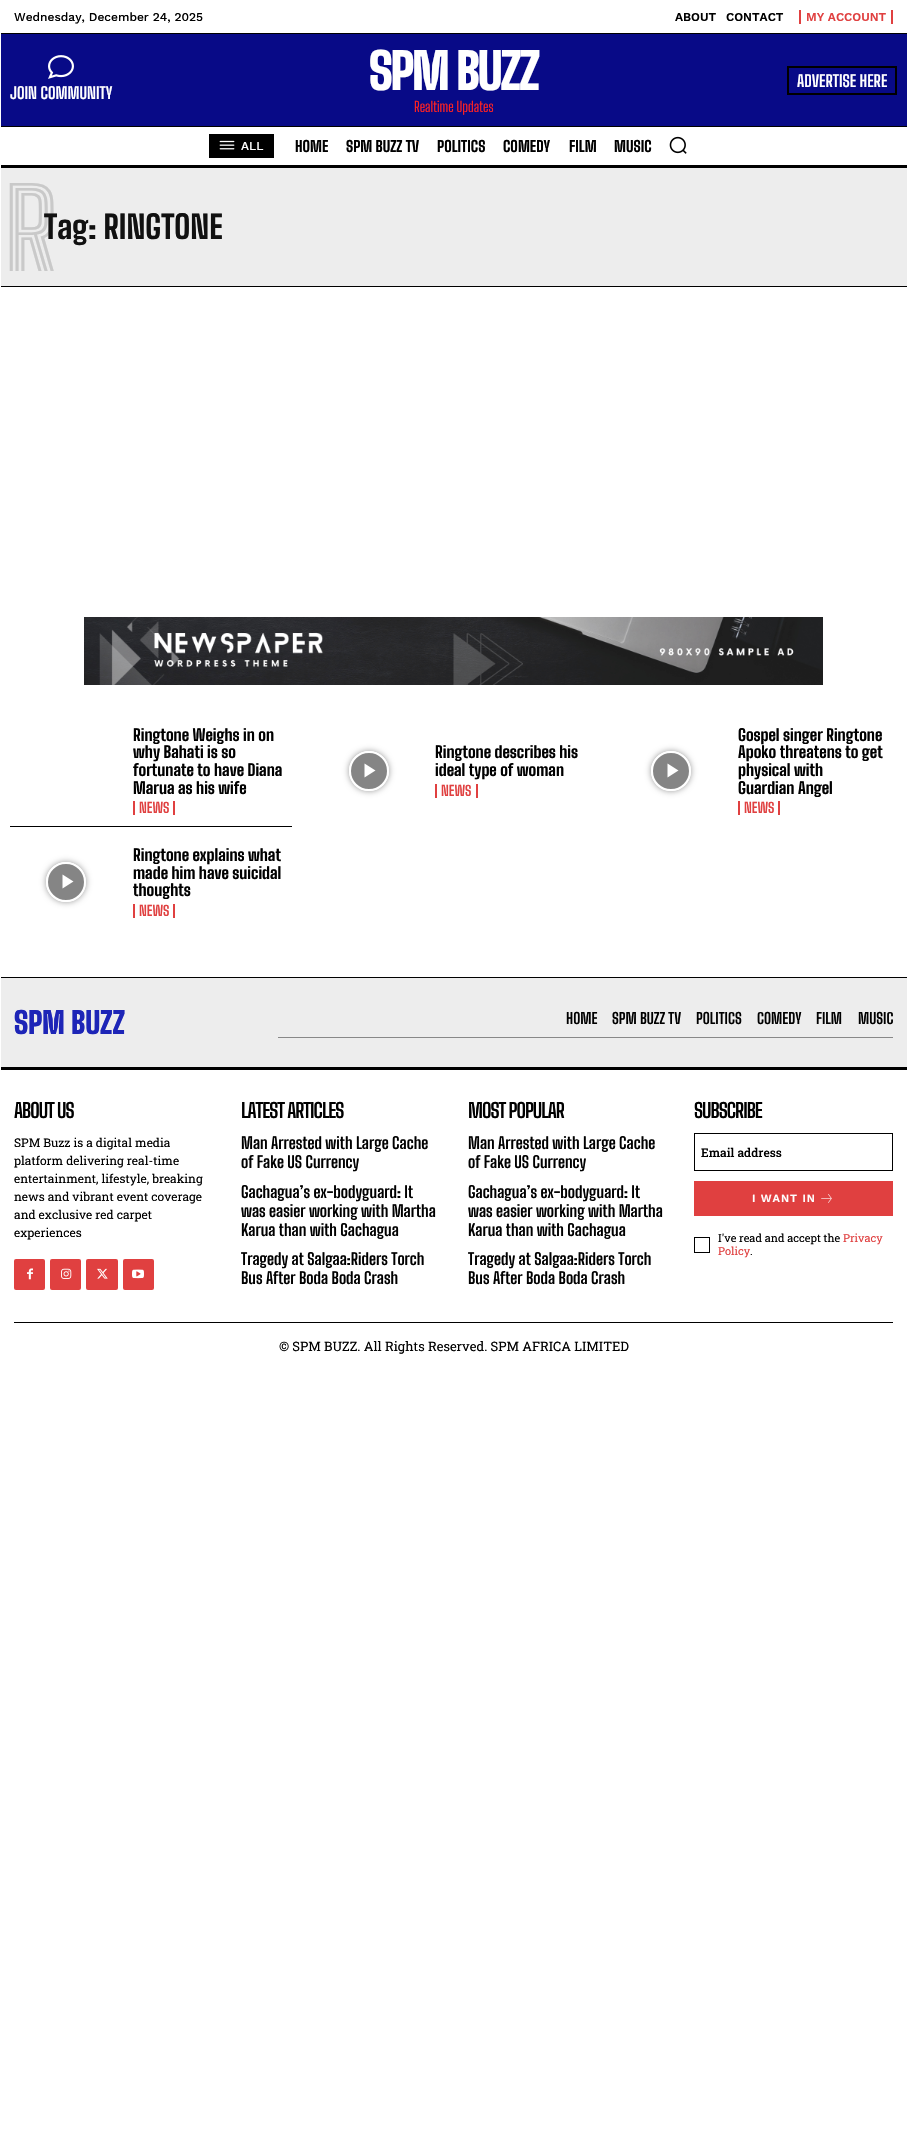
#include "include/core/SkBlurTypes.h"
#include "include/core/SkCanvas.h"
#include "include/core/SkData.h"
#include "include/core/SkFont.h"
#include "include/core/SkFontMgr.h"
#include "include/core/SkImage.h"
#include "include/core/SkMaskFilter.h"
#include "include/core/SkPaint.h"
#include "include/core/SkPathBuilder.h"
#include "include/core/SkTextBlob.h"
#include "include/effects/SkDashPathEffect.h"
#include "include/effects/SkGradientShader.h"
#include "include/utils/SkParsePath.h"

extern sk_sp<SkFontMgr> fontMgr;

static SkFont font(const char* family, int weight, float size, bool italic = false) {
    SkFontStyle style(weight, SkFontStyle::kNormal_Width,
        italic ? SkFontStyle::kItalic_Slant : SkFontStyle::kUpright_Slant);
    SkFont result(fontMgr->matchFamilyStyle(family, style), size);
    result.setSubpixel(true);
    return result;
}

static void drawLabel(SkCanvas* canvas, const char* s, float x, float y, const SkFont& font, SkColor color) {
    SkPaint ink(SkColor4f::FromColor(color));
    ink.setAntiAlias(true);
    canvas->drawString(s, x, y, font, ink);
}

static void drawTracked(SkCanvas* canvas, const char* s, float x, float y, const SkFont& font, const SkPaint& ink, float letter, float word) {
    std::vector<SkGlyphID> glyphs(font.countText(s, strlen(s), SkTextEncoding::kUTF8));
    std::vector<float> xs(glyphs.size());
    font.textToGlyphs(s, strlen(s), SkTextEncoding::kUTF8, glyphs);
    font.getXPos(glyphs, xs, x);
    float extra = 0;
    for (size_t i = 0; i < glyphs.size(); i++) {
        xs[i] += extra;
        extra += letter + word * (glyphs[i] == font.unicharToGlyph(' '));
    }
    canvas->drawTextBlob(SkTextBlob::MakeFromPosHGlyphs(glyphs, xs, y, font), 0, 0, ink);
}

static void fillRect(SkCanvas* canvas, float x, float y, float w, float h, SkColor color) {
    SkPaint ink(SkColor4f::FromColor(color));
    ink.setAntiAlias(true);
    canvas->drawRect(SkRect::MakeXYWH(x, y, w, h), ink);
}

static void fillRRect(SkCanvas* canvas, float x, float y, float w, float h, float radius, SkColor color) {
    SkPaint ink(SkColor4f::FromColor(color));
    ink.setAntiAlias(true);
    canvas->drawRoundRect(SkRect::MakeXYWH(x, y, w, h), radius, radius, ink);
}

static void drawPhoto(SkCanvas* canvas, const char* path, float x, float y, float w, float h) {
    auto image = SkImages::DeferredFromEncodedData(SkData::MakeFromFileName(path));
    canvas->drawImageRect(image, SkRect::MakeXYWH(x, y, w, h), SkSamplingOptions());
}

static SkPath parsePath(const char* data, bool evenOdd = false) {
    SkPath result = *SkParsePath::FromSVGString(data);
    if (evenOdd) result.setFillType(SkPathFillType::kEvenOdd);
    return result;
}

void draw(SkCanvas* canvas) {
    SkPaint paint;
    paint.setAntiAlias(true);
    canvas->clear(0xFFFFFFFF);
    SkFont font1 = font("Work Sans", 500, 12);
    drawLabel(canvas, "Wednesday, December 24, 2025", 14, 21, font1, 0xFF000000);
    SkFont font2 = font("Work Sans", 600, 12);
    drawLabel(canvas, "ABOUT", 675, 21, font2, 0xFF000000);
    drawLabel(canvas, "CONTACT", 726, 21, font2, 0xFF000000);
    fillRect(canvas, 891, 10, 2, 14, 0xFFE04040);
    fillRect(canvas, 799, 10, 2, 14, 0xFFE04040);
    drawLabel(canvas, "MY ACCOUNT", 806, 21, font2, 0xFFE04040);
    fillRect(canvas, 1, 33, 906, 1, 0xFF000000);
    fillRect(canvas, 1, 34, 906, 92, 0xFF080A87);
    SkFont font3 = font("Big Shoulders Display", 900, 50);
    paint.setColor(0xFFFFFFFF);
    drawTracked(canvas, "SPM BUZZ", 369, 90, font3, paint, -2, 0);
    SkFont font4 = font("Big Shoulders Text", 400, 14);
    drawLabel(canvas, "Realtime Updates", 414, 112, font4, 0xFFFF2121);
    paint.setStroke(true);
    paint.setStrokeWidth(2);
    paint.setColor(0xFF000000);
    canvas->drawRect(SkRect::MakeXYWH(788, 67, 108, 27), paint);
    SkFont font5 = font("Big Shoulders Text", 700, 16);
    drawLabel(canvas, "ADVERTISE HERE", 797, 87, font5, 0xFFFFFFFF);
    drawPhoto(canvas, "assets/img1.png", 48, 55, 26, 24);
    drawLabel(canvas, "JOIN COMMUNITY", 10, 99, font5, 0xFFFFFFFF);
    fillRect(canvas, 1, 126, 906, 1, 0xFF000000);
    fillRect(canvas, 1, 165, 906, 3, 0xFF000000);
    fillRect(canvas, 209, 134, 65, 24, 0xFF000000);
    drawPhoto(canvas, "assets/img2.png", 219, 140, 16, 10);
    drawLabel(canvas, "ALL", 241, 150, font1, 0xFFFFFFFF);
    SkFont font6 = font("Big Shoulders Text", 800, 15);
    drawLabel(canvas, "HOME", 295, 152, font6, 0xFF000000);
    drawLabel(canvas, "SPM BUZZ TV", 346, 152, font6, 0xFF000000);
    drawLabel(canvas, "POLITICS", 437, 152, font6, 0xFF000000);
    drawLabel(canvas, "COMEDY", 503, 152, font6, 0xFF000000);
    drawLabel(canvas, "FILM", 569, 152, font6, 0xFF000000);
    drawLabel(canvas, "MUSIC", 614, 152, font6, 0xFF000000);
    drawPhoto(canvas, "assets/img3.png", 669, 136, 18, 18);
    fillRect(canvas, 1, 168, 906, 118, 0xFFEDEDED);
    fillRect(canvas, 1, 286, 906, 1, 0xFF000000);
    SkFont font7 = font("Big Shoulders Inline Text", 800, 110);
    drawLabel(canvas, "R", 4, 271, font7, 0xFFC9C9C9);
    SkFont font8 = font("Big Shoulders Text", 800, 32);
    drawLabel(canvas, "Tag: RINGTONE", 44, 239, font8, 0xFF111111);
    drawPhoto(canvas, "assets/img4.png", 84, 617, 739, 68);
    fillRect(canvas, 10, 826, 282, 1, 0xFF000000);
    SkFont font9 = font("Big Shoulders Text", 800, 16);
    drawLabel(canvas, "Ringtone Weighs in on", 133, 741, font9, 0xFF000000);
    drawLabel(canvas, "why Bahati is so", 133, 758, font9, 0xFF000000);
    drawLabel(canvas, "fortunate to have Diana", 133, 776, font9, 0xFF000000);
    drawLabel(canvas, "Marua as his wife", 133, 794, font9, 0xFF000000);
    fillRect(canvas, 173, 801, 2, 14, 0xFFE04040);
    fillRect(canvas, 133, 801, 2, 14, 0xFFE04040);
    SkFont font10 = font("Big Shoulders Text", 700, 14);
    drawLabel(canvas, "NEWS", 139, 813, font10, 0xFFE04040);
    canvas->save();
    canvas->clipPath(parsePath("M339 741H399V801H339ZM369 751C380 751 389 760 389 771C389 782 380 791 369 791C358 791 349 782 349 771C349 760 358 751 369 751Z", true), true);
    paint.setStroke(false);
    paint.setColor(0x66000000);
    paint.setMaskFilter(SkMaskFilter::MakeBlur(kNormal_SkBlurStyle, 3));
    canvas->drawRoundRect(SkRect::MakeXYWH(349, 751, 40, 40), 20, 20, paint);
    paint.setMaskFilter(nullptr);
    canvas->restore();
    paint.setColor(0x7A000000);
    canvas->drawCircle(369, 771, 19, paint);
    paint.setStroke(true);
    paint.setColor(0xFFFFFFFF);
    canvas->drawCircle(369, 771, 19, paint);
    paint.setStroke(false);
    canvas->drawPath(parsePath("M364.5 763.5V777.5L375.5 770.5Z"), paint);
    drawLabel(canvas, "Ringtone describes his", 435, 758, font9, 0xFF000000);
    drawLabel(canvas, "ideal type of woman", 435, 776, font9, 0xFF000000);
    fillRect(canvas, 476, 784, 2, 14, 0xFFE04040);
    fillRect(canvas, 435, 784, 2, 14, 0xFFE04040);
    drawLabel(canvas, "NEWS", 441, 796, font10, 0xFFE04040);
    canvas->save();
    canvas->clipPath(parsePath("M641 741H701V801H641ZM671 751C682 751 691 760 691 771C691 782 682 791 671 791C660 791 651 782 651 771C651 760 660 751 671 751Z", true), true);
    paint.setColor(0x66000000);
    paint.setMaskFilter(SkMaskFilter::MakeBlur(kNormal_SkBlurStyle, 3));
    canvas->drawRoundRect(SkRect::MakeXYWH(651, 751, 40, 40), 20, 20, paint);
    paint.setMaskFilter(nullptr);
    canvas->restore();
    paint.setColor(0x7A000000);
    canvas->drawCircle(671, 771, 19, paint);
    paint.setStroke(true);
    paint.setColor(0xFFFFFFFF);
    canvas->drawCircle(671, 771, 19, paint);
    paint.setStroke(false);
    canvas->drawPath(parsePath("M667.5 763.5V777.5L678.5 770.5Z"), paint);
    drawLabel(canvas, "Gospel singer Ringtone", 738, 741, font9, 0xFF000000);
    drawLabel(canvas, "Apoko threatens to get", 738, 758, font9, 0xFF000000);
    drawLabel(canvas, "physical with", 738, 776, font9, 0xFF000000);
    drawLabel(canvas, "Guardian Angel", 738, 794, font9, 0xFF000000);
    fillRect(canvas, 778, 801, 2, 14, 0xFFE04040);
    fillRect(canvas, 738, 801, 2, 14, 0xFFE04040);
    drawLabel(canvas, "NEWS", 744, 813, font10, 0xFFE04040);
    canvas->save();
    canvas->clipPath(parsePath("M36 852H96V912H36ZM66 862C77 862 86 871 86 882C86 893 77 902 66 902C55 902 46 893 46 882C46 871 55 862 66 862Z", true), true);
    paint.setColor(0x66000000);
    paint.setMaskFilter(SkMaskFilter::MakeBlur(kNormal_SkBlurStyle, 3));
    canvas->drawRoundRect(SkRect::MakeXYWH(46, 862, 40, 40), 20, 20, paint);
    paint.setMaskFilter(nullptr);
    canvas->restore();
    paint.setColor(0x7A000000);
    canvas->drawCircle(66, 882, 19, paint);
    paint.setStroke(true);
    paint.setColor(0xFFFFFFFF);
    canvas->drawCircle(66, 882, 19, paint);
    paint.setStroke(false);
    canvas->drawPath(parsePath("M62.5 874.5V888.5L73.5 881.5Z"), paint);
    drawLabel(canvas, "Ringtone explains what", 133, 861, font9, 0xFF000000);
    drawLabel(canvas, "made him have suicidal", 133, 879, font9, 0xFF000000);
    drawLabel(canvas, "thoughts", 133, 896, font9, 0xFF000000);
    fillRect(canvas, 173, 904, 2, 14, 0xFFE04040);
    fillRect(canvas, 133, 904, 2, 14, 0xFFE04040);
    drawLabel(canvas, "NEWS", 139, 916, font10, 0xFFE04040);
    fillRect(canvas, 1, 978, 906, 89, 0xFFEDEDED);
    fillRect(canvas, 1, 977, 906, 1, 0xFF000000);
    fillRect(canvas, 1, 1067, 906, 3, 0xFF000000);
    SkFont font11 = font("Big Shoulders Display", 900, 30);
    drawLabel(canvas, "SPM BUZZ", 14, 1034, font11, 0xFF1D25B7);
    fillRect(canvas, 278, 1037, 615, 1, 0xFF888888);
    SkFont font12 = font("Big Shoulders Text", 700, 15);
    drawLabel(canvas, "HOME", 566, 1024, font12, 0xFF000000);
    drawLabel(canvas, "SPM BUZZ TV", 612, 1024, font12, 0xFF000000);
    drawLabel(canvas, "POLITICS", 696, 1024, font12, 0xFF000000);
    drawLabel(canvas, "COMEDY", 757, 1024, font12, 0xFF000000);
    drawLabel(canvas, "FILM", 816, 1024, font12, 0xFF000000);
    drawLabel(canvas, "MUSIC", 858, 1024, font12, 0xFF000000);
    SkFont font13 = font("Big Shoulders Text", 700, 20);
    paint.setColor(0xFF000000);
    drawTracked(canvas, "ABOUT US", 14, 1118, font13, paint, -1, 0);
    SkFont font14 = font("Roboto Slab", 400, 12);
    drawLabel(canvas, "SPM Buzz is a digital media", 14, 1147, font14, 0xFF000000);
    drawLabel(canvas, "platform delivering real-time", 14, 1165, font14, 0xFF000000);
    drawLabel(canvas, "entertainment, lifestyle, breaking", 14, 1183, font14, 0xFF000000);
    drawLabel(canvas, "news and vibrant event coverage", 14, 1201, font14, 0xFF000000);
    drawLabel(canvas, "and exclusive red carpet", 14, 1219, font14, 0xFF000000);
    drawLabel(canvas, "experiences", 14, 1237, font14, 0xFF000000);
    fillRRect(canvas, 14, 1259, 31, 31, 2, 0xFFE04040);
    drawPhoto(canvas, "assets/img5.png", 27, 1268, 6, 12);
    fillRRect(canvas, 50, 1259, 31, 31, 2, 0xFFE04040);
    drawPhoto(canvas, "assets/img6.png", 61, 1268, 11, 11);
    fillRRect(canvas, 86, 1259, 32, 31, 2, 0xFFE04040);
    drawPhoto(canvas, "assets/img7.png", 97, 1268, 11, 11);
    fillRRect(canvas, 123, 1259, 31, 31, 2, 0xFFE04040);
    drawPhoto(canvas, "assets/img8.png", 132, 1269, 12, 10);
    drawTracked(canvas, "LATEST ARTICLES", 241, 1118, font13, paint, -1, 0);
    drawLabel(canvas, "Man Arrested with Large Cache", 241, 1149, font5, 0xFF000000);
    drawLabel(canvas, "of Fake US Currency", 241, 1168, font5, 0xFF000000);
    drawLabel(canvas, "Gachagua’s ex-bodyguard: It", 241, 1198, font5, 0xFF000000);
    drawLabel(canvas, "was easier working with Martha", 241, 1217, font5, 0xFF000000);
    drawLabel(canvas, "Karua than with Gachagua", 241, 1236, font5, 0xFF000000);
    drawLabel(canvas, "Tragedy at Salgaa:Riders Torch", 241, 1265, font5, 0xFF000000);
    drawLabel(canvas, "Bus After Boda Boda Crash", 241, 1284, font5, 0xFF000000);
    drawTracked(canvas, "MOST POPULAR", 468, 1118, font13, paint, -1, 0);
    drawLabel(canvas, "Man Arrested with Large Cache", 468, 1149, font5, 0xFF000000);
    drawLabel(canvas, "of Fake US Currency", 468, 1168, font5, 0xFF000000);
    drawLabel(canvas, "Gachagua’s ex-bodyguard: It", 468, 1198, font5, 0xFF000000);
    drawLabel(canvas, "was easier working with Martha", 468, 1217, font5, 0xFF000000);
    drawLabel(canvas, "Karua than with Gachagua", 468, 1236, font5, 0xFF000000);
    drawLabel(canvas, "Tragedy at Salgaa:Riders Torch", 468, 1265, font5, 0xFF000000);
    drawLabel(canvas, "Bus After Boda Boda Crash", 468, 1284, font5, 0xFF000000);
    drawTracked(canvas, "SUBSCRIBE", 694, 1118, font13, paint, -1, 0);
    paint.setStroke(true);
    paint.setStrokeWidth(1);
    canvas->drawRect(SkRect::MakeXYWH(694.5f, 1133.5f, 198, 37), paint);
    SkFont font15 = font("Roboto Slab", 500, 12);
    drawLabel(canvas, "Email address", 701, 1157, font15, 0xFF000000);
    fillRect(canvas, 694, 1181, 199, 35, 0xFFE04040);
    SkFont font16 = font("Work Sans", 600, 11);
    paint.setStroke(false);
    paint.setColor(0xFFFFFFFF);
    drawTracked(canvas, "I WANT IN", 752, 1202, font16, paint, 1, 0);
    drawPhoto(canvas, "assets/img9.png", 821, 1194, 11, 9);
    paint.setStroke(true);
    paint.setColor(0xFF000000);
    canvas->drawRect(SkRect::MakeXYWH(694.5f, 1237.5f, 15, 15), paint);
    SkFont font17 = font("Roboto Slab", 400, 11);
    drawLabel(canvas, "I've read and accept the", 718, 1242, font17, 0xFF000000);
    drawLabel(canvas, "Privacy", 843, 1242, font17, 0xFFE04040);
    drawLabel(canvas, "Policy", 718, 1255, font17, 0xFFE04040);
    drawLabel(canvas, ".", 750, 1255, font17, 0xFF000000);
    fillRect(canvas, 14, 1322, 879, 1, 0xFF000000);
    SkFont font18 = font("Roboto Slab", 400, 13);
    drawLabel(canvas, "© SPM BUZZ. All Rights Reserved. SPM AFRICA LIMITED", 279, 1351, font18, 0xFF000000);
}
